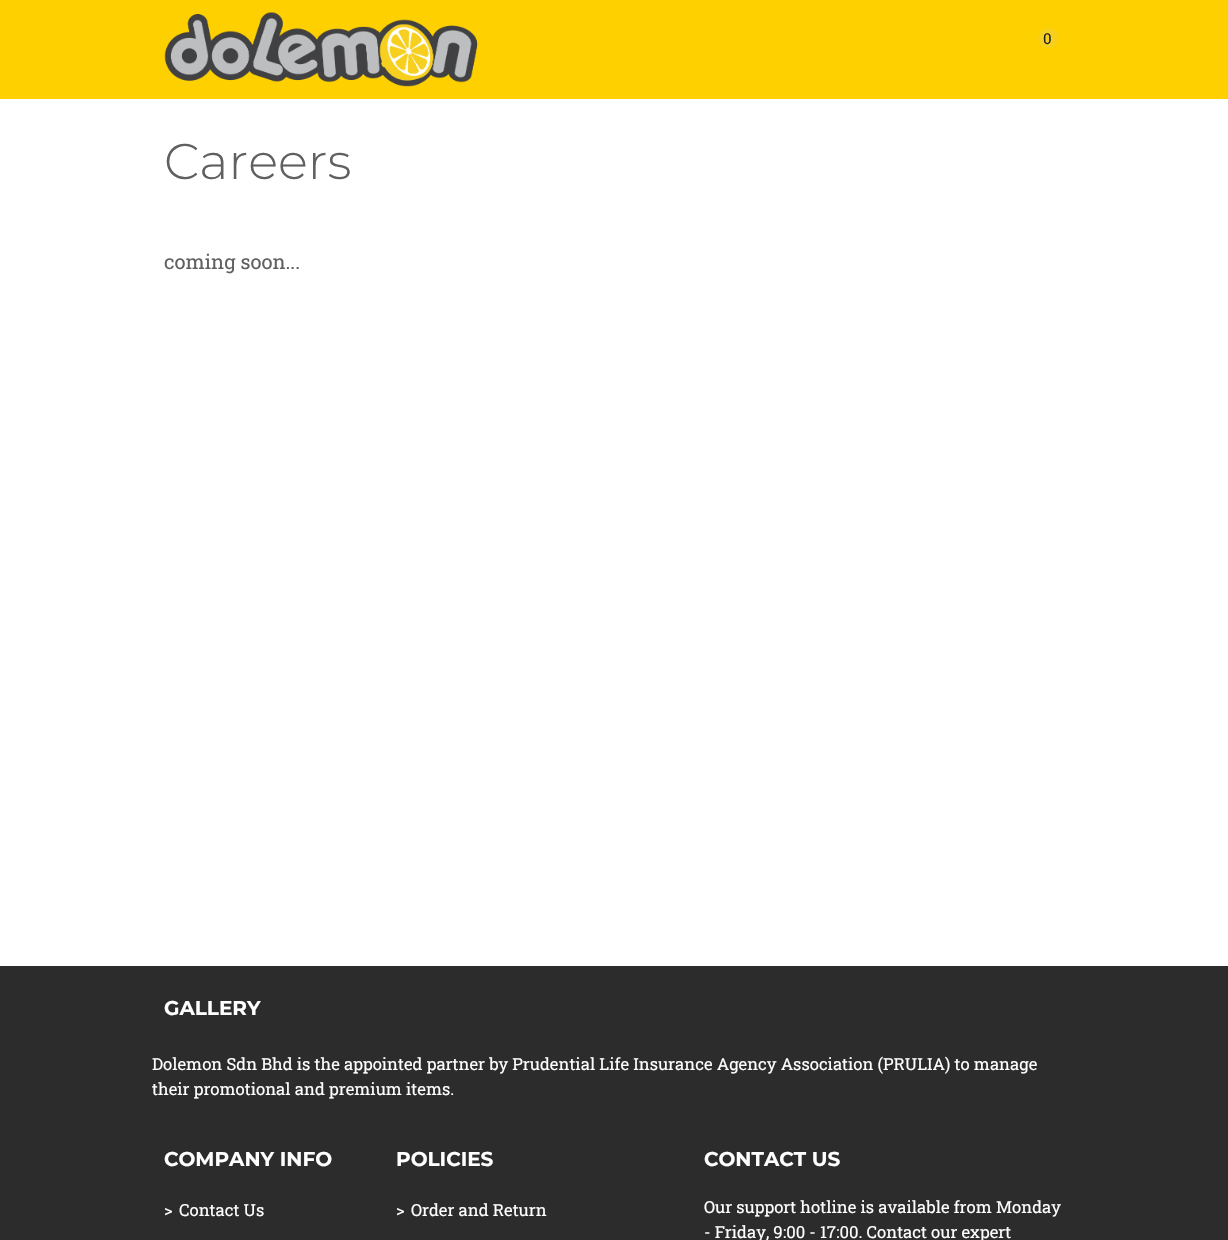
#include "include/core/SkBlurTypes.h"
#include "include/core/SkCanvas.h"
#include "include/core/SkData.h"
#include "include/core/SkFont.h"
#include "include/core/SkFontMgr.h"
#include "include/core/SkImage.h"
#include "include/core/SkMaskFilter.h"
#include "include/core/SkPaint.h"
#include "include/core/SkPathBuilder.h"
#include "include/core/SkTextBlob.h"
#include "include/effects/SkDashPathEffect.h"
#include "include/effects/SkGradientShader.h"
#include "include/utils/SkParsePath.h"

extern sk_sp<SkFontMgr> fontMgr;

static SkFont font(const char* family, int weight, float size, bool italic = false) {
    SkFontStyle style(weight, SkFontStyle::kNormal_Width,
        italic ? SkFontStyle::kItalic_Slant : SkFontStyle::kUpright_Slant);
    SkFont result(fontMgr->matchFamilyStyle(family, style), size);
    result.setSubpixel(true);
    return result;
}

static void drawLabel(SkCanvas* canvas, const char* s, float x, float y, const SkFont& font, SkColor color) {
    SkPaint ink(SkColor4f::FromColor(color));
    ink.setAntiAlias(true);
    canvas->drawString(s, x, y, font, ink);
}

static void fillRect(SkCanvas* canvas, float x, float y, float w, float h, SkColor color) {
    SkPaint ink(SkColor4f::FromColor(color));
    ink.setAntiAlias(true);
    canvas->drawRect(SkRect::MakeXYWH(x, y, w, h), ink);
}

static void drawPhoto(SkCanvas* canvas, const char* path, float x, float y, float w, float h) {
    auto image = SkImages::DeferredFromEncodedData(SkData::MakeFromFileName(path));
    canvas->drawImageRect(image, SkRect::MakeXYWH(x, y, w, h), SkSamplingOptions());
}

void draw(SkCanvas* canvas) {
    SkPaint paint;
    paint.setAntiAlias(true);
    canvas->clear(0xFFFFFFFF);
    fillRect(canvas, 0, 0, 1228, 99, 0xFFFFD000);
    drawPhoto(canvas, "assets/img1.png", 164, 12, 314, 75);
    paint.setColor(0xFFF7CF1E);
    canvas->drawCircle(1048, 38, 10, paint);
    SkFont font1 = font("Roboto Slab", 400, 15);
    drawLabel(canvas, "0", 1043, 44, font1, 0xFF202020);
    SkFont font2 = font("Montserrat", 300, 50);
    drawLabel(canvas, "Careers", 164, 179, font2, 0xFF606060);
    SkFont font3 = font("Roboto Slab", 400, 20);
    drawLabel(canvas, "coming soon...", 164, 269, font3, 0xFF606060);
    fillRect(canvas, 0, 966, 1228, 274, 0xFF2C2C2C);
    SkFont font4 = font("Montserrat", 700, 20);
    drawLabel(canvas, "GALLERY", 164, 1015, font4, 0xFFFFFFFF);
    SkFont font5 = font("Roboto Slab", 400, 16.67f);
    drawLabel(canvas, "Dolemon Sdn Bhd is the appointed partner by Prudential Life Insurance Agency Association (PRULIA) to manage", 152, 1070, font5, 0xFFFFFFFF);
    drawLabel(canvas, "their promotional and premium items.", 152, 1095, font5, 0xFFFFFFFF);
    drawLabel(canvas, "COMPANY INFO", 164, 1166, font4, 0xFFFFFFFF);
    drawLabel(canvas, ">", 164, 1216, font5, 0xFFFFFFFF);
    drawLabel(canvas, "Contact Us", 179, 1216, font5, 0xFFFFFFFF);
    drawLabel(canvas, "POLICIES", 396, 1166, font4, 0xFFFFFFFF);
    drawLabel(canvas, ">", 396, 1216, font5, 0xFFFFFFFF);
    drawLabel(canvas, "Order and Return", 411, 1216, font5, 0xFFFFFFFF);
    drawLabel(canvas, "CONTACT US", 704, 1166, font4, 0xFFFFFFFF);
    drawLabel(canvas, "Our support hotline is available from Monday", 704, 1213, font5, 0xFFFFFFFF);
    drawLabel(canvas, "- Friday, 9:00 - 17:00. Contact our expert", 704, 1238, font5, 0xFFFFFFFF);
}
